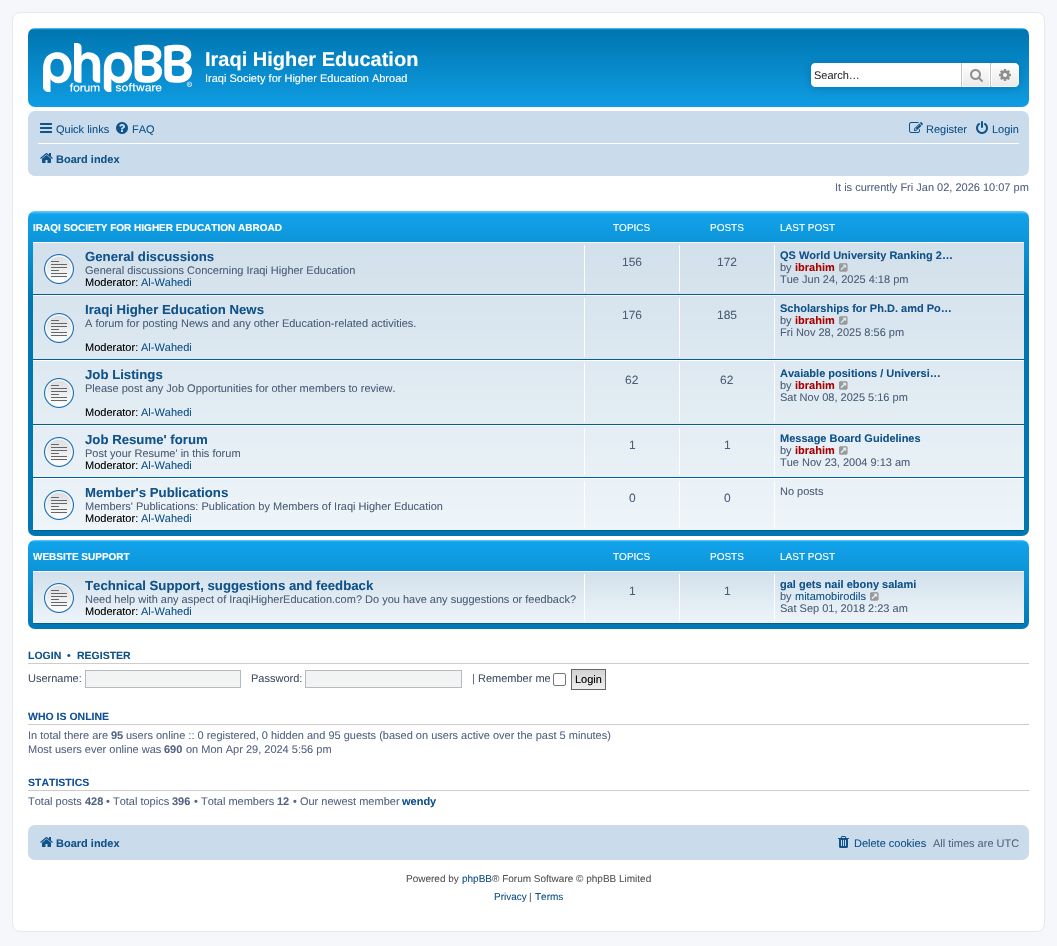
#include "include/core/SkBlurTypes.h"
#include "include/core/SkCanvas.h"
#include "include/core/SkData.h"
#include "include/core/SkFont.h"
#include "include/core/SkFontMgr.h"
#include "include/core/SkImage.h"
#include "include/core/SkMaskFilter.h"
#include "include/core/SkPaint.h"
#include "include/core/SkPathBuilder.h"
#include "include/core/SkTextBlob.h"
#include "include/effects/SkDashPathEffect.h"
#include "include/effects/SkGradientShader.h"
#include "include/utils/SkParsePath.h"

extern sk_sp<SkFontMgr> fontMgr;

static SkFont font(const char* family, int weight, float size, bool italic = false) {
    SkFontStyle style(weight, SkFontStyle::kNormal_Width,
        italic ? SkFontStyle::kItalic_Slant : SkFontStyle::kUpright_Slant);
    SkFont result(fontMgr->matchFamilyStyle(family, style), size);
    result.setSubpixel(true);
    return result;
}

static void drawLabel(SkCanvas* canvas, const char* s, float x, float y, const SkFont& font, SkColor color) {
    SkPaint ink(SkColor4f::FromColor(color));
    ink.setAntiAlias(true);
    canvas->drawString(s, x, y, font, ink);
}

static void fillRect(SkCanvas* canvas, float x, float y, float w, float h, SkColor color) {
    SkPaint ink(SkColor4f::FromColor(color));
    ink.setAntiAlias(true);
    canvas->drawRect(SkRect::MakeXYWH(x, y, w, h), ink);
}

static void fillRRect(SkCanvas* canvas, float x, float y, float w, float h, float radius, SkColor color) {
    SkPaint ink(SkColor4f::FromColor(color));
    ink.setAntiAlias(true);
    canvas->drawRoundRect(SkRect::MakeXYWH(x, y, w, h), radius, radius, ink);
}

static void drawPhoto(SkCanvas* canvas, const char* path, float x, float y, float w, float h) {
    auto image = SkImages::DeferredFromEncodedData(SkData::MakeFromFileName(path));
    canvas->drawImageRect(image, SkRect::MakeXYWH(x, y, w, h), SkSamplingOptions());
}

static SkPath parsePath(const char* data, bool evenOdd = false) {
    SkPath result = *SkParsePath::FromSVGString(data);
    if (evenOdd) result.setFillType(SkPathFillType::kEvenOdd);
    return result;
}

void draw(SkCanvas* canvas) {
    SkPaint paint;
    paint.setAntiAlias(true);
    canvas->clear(0xFFF5F7FA);
    paint.setColor(0xFFFFFFFF);
    canvas->drawRoundRect(SkRect::MakeXYWH(12.5f, 12.5f, 1032, 919), 7.5f, 7.5f, paint);
    paint.setStroke(true);
    paint.setStrokeWidth(1);
    paint.setColor(0xFFE6E9ED);
    canvas->drawRoundRect(SkRect::MakeXYWH(12.5f, 12.5f, 1032, 919), 7.5f, 7.5f, paint);
    paint.setStroke(false);
    {
        const SkColor colors[] = {0xFF6ACEFF, 0xFF0076B1, 0xFF12A3EB};
        const float stops[] = {0, 0.02f, 1};
        const SkPoint ends[] = {{529, 28}, {529, 120}};
        paint.setShader(SkGradientShader::MakeLinear(ends, colors, stops, 3, SkTileMode::kClamp));
        paint.setAlpha(255);
    }
    canvas->drawRoundRect(SkRect::MakeXYWH(28, 28, 1001, 79), 7, 7, paint);
    drawPhoto(canvas, "assets/img1.png", 43, 43, 149, 49);
    SkFont font1 = font("Liberation Sans", 700, 20);
    drawLabel(canvas, "Iraqi Higher Education", 205, 66, font1, 0xFFFFFFFF);
    SkFont font2 = font("Liberation Sans", 400, 11);
    drawLabel(canvas, "Iraqi Society for Higher Education Abroad", 205, 82, font2, 0xFFFFFFFF);
    paint.setShader(nullptr);
    paint.setColor(0xFF0075B0);
    paint.setMaskFilter(SkMaskFilter::MakeBlur(kNormal_SkBlurStyle, 5));
    canvas->drawRoundRect(SkRect::MakeXYWH(811, 63, 208, 24), 4, 4, paint);
    paint.setMaskFilter(nullptr);
    paint.setColor(0xFFFFFFFF);
    canvas->drawPath(parsePath("M815 63H961V87H815C813 87 811 85 811 83V67C811 65 813 63 815 63Z"), paint);
    drawLabel(canvas, "Search…", 814, 79, font2, 0xFF333333);
    {
        const SkColor colors[] = {0xFFFFFFFF, 0xFFE9E9E9};
        const float stops[] = {0, 1};
        const SkPoint ends[] = {{976, 63}, {976, 87}};
        paint.setShader(SkGradientShader::MakeLinear(ends, colors, stops, 2, SkTileMode::kClamp));
        paint.setAlpha(255);
    }
    canvas->drawRect(SkRect::MakeXYWH(963, 64, 26, 22), paint);
    paint.setStroke(true);
    paint.setShader(nullptr);
    paint.setColor(0xFFFFFFFF);
    canvas->drawRect(SkRect::MakeXYWH(962.5f, 63.5f, 27, 23), paint);
    fillRect(canvas, 990, 63, 1, 24, 0xFFC7C3BF);
    fillRect(canvas, 961, 63, 1, 24, 0xFFC7C3BF);
    drawPhoto(canvas, "assets/img2.png", 970, 69, 13, 13);
    paint.setStroke(false);
    {
        const SkColor colors[] = {0xFFFFFFFF, 0xFFE9E9E9};
        const float stops[] = {0, 1};
        const SkPoint ends[] = {{1005, 63}, {1005, 87}};
        paint.setShader(SkGradientShader::MakeLinear(ends, colors, stops, 2, SkTileMode::kClamp));
        paint.setAlpha(255);
    }
    canvas->drawPath(parsePath("M991.5 63.5H1015C1017 63.5 1018.5 65 1018.5 67V83C1018.5 85 1017 86.5 1015 86.5H991.5Z"), paint);
    paint.setStroke(true);
    paint.setShader(nullptr);
    paint.setColor(0xFFFFFFFF);
    canvas->drawPath(parsePath("M991.5 63.5H1015C1017 63.5 1018.5 65 1018.5 67V83C1018.5 85 1017 86.5 1015 86.5H991.5Z"), paint);
    drawPhoto(canvas, "assets/img3.png", 999, 69, 12, 12);
    fillRRect(canvas, 28, 111, 1001, 65, 7, 0xFFCADCEB);
    drawPhoto(canvas, "assets/img4.png", 40, 123, 12, 10);
    drawLabel(canvas, "Quick links", 56, 133, font2, 0xFF105289);
    drawPhoto(canvas, "assets/img5.png", 116, 122, 12, 12);
    drawLabel(canvas, "FAQ", 132, 133, font2, 0xFF105289);
    drawPhoto(canvas, "assets/img6.png", 909, 122, 14, 11);
    drawLabel(canvas, "Register", 926, 133, font2, 0xFF105289);
    drawPhoto(canvas, "assets/img7.png", 976, 121, 12, 13);
    drawLabel(canvas, "Login", 992, 133, font2, 0xFF105289);
    fillRect(canvas, 38, 143, 981, 1, 0xFFFFFFFF);
    drawPhoto(canvas, "assets/img8.png", 40, 153, 13, 10);
    SkFont font3 = font("Liberation Sans", 700, 11);
    drawLabel(canvas, "Board index", 56, 163, font3, 0xFF105289);
    drawLabel(canvas, "It is currently Fri Jan 02, 2026 10:07 pm", 835, 191, font2, 0xFF536482);
    paint.setStroke(false);
    {
        const SkColor colors[] = {0xFF6ACEFF, 0xFF12A3EB, 0xFF0076B1, 0xFF0076B1};
        const float stops[] = {0, 0.01f, 0.28f, 1};
        const SkPoint ends[] = {{529, 211}, {529, 536}};
        paint.setShader(SkGradientShader::MakeLinear(ends, colors, stops, 4, SkTileMode::kClamp));
        paint.setAlpha(255);
    }
    canvas->drawRoundRect(SkRect::MakeXYWH(28, 211, 1001, 325), 7, 7, paint);
    SkFont font4 = font("Liberation Sans", 700, 10);
    drawLabel(canvas, "IRAQI SOCIETY FOR HIGHER EDUCATION ABROAD", 33, 231, font4, 0xFFFFFFFF);
    SkFont font5 = font("Liberation Sans", 400, 10);
    drawLabel(canvas, "TOPICS", 613, 231, font5, 0xFFFFFFFF);
    drawLabel(canvas, "POSTS", 710, 231, font5, 0xFFFFFFFF);
    drawLabel(canvas, "LAST POST", 780, 231, font5, 0xFFFFFFFF);
    {
        const SkColor colors[] = {0xFFD2E0EB, 0xFFEEF5F9};
        const float stops[] = {0, 1};
        const SkPoint ends[] = {{529, 242}, {529, 531}};
        paint.setShader(SkGradientShader::MakeLinear(ends, colors, stops, 2, SkTileMode::kClamp));
        paint.setAlpha(255);
    }
    canvas->drawRect(SkRect::MakeXYWH(33, 243, 991, 287), paint);
    fillRect(canvas, 33, 242, 991, 1, 0xFFFFFFFF);
    fillRect(canvas, 33, 294, 991, 1, 0xFF00608F);
    drawPhoto(canvas, "assets/img9.png", 44, 254, 30, 30);
    SkFont font6 = font("Liberation Sans", 700, 13.2f);
    drawLabel(canvas, "General discussions", 85, 261, font6, 0xFF105289);
    drawLabel(canvas, "General discussions Concerning Iraqi Higher Education", 85, 274, font2, 0xFF4C5D77);
    drawLabel(canvas, "Moderator:", 85, 286, font2, 0xFF000000);
    drawLabel(canvas, "Al-Wahedi", 141, 286, font2, 0xFF105289);
    fillRect(canvas, 584, 245, 1, 47, 0xFFFFFFFF);
    SkFont font7 = font("Liberation Sans", 400, 12);
    drawLabel(canvas, "156", 622, 266, font7, 0xFF4C5D77);
    fillRect(canvas, 679, 245, 1, 47, 0xFFFFFFFF);
    drawLabel(canvas, "172", 717, 266, font7, 0xFF4C5D77);
    fillRect(canvas, 774, 245, 1, 47, 0xFFFFFFFF);
    drawLabel(canvas, "QS World University Ranking 2…", 780, 259, font3, 0xFF105289);
    drawLabel(canvas, "by", 780, 271, font2, 0xFF4C5D77);
    drawLabel(canvas, "ibrahim", 795, 271, font3, 0xFFAA0000);
    drawPhoto(canvas, "assets/img10.png", 839, 263, 9, 9);
    drawLabel(canvas, "Tue Jun 24, 2025 4:18 pm", 780, 283, font2, 0xFF4C5D77);
    fillRect(canvas, 33, 295, 991, 1, 0xFFFFFFFF);
    fillRect(canvas, 33, 359, 991, 1, 0xFF00608F);
    drawPhoto(canvas, "assets/img11.png", 44, 313, 30, 30);
    drawLabel(canvas, "Iraqi Higher Education News", 85, 314, font6, 0xFF105289);
    drawLabel(canvas, "A forum for posting News and any other Education-related activities.", 85, 327, font2, 0xFF4C5D77);
    drawLabel(canvas, "Moderator:", 85, 351, font2, 0xFF000000);
    drawLabel(canvas, "Al-Wahedi", 141, 351, font2, 0xFF105289);
    fillRect(canvas, 584, 298, 1, 59, 0xFFFFFFFF);
    drawLabel(canvas, "176", 622, 319, font7, 0xFF4C5D77);
    fillRect(canvas, 679, 298, 1, 59, 0xFFFFFFFF);
    drawLabel(canvas, "185", 717, 319, font7, 0xFF4C5D77);
    fillRect(canvas, 774, 298, 1, 59, 0xFFFFFFFF);
    drawLabel(canvas, "Scholarships for Ph.D. amd Po…", 780, 312, font3, 0xFF105289);
    drawLabel(canvas, "by", 780, 324, font2, 0xFF4C5D77);
    drawLabel(canvas, "ibrahim", 795, 324, font3, 0xFFAA0000);
    drawPhoto(canvas, "assets/img12.png", 839, 316, 9, 9);
    drawLabel(canvas, "Fri Nov 28, 2025 8:56 pm", 780, 336, font2, 0xFF4C5D77);
    fillRect(canvas, 33, 360, 991, 1, 0xFFFFFFFF);
    fillRect(canvas, 33, 424, 991, 1, 0xFF00608F);
    drawPhoto(canvas, "assets/img13.png", 44, 378, 30, 30);
    drawLabel(canvas, "Job Listings", 85, 379, font6, 0xFF105289);
    drawLabel(canvas, "Please post any Job Opportunities for other members to review.", 85, 392, font2, 0xFF4C5D77);
    drawLabel(canvas, "Moderator:", 85, 416, font2, 0xFF000000);
    drawLabel(canvas, "Al-Wahedi", 141, 416, font2, 0xFF105289);
    fillRect(canvas, 584, 363, 1, 59, 0xFFFFFFFF);
    drawLabel(canvas, "62", 625, 384, font7, 0xFF4C5D77);
    fillRect(canvas, 679, 363, 1, 59, 0xFFFFFFFF);
    drawLabel(canvas, "62", 720, 384, font7, 0xFF4C5D77);
    fillRect(canvas, 774, 363, 1, 59, 0xFFFFFFFF);
    drawLabel(canvas, "Avaiable positions / Universi…", 780, 377, font3, 0xFF105289);
    drawLabel(canvas, "by", 780, 389, font2, 0xFF4C5D77);
    drawLabel(canvas, "ibrahim", 795, 389, font3, 0xFFAA0000);
    drawPhoto(canvas, "assets/img14.png", 839, 381, 9, 9);
    drawLabel(canvas, "Sat Nov 08, 2025 5:16 pm", 780, 401, font2, 0xFF4C5D77);
    fillRect(canvas, 33, 425, 991, 1, 0xFFFFFFFF);
    fillRect(canvas, 33, 477, 991, 1, 0xFF00608F);
    drawPhoto(canvas, "assets/img15.png", 44, 437, 30, 30);
    drawLabel(canvas, "Job Resume' forum", 85, 444, font6, 0xFF105289);
    drawLabel(canvas, "Post your Resume' in this forum", 85, 457, font2, 0xFF4C5D77);
    drawLabel(canvas, "Moderator:", 85, 469, font2, 0xFF000000);
    drawLabel(canvas, "Al-Wahedi", 141, 469, font2, 0xFF105289);
    fillRect(canvas, 584, 428, 1, 47, 0xFFFFFFFF);
    drawLabel(canvas, "1", 629, 449, font7, 0xFF4C5D77);
    fillRect(canvas, 679, 428, 1, 47, 0xFFFFFFFF);
    drawLabel(canvas, "1", 724, 449, font7, 0xFF4C5D77);
    fillRect(canvas, 774, 428, 1, 47, 0xFFFFFFFF);
    drawLabel(canvas, "Message Board Guidelines", 780, 442, font3, 0xFF105289);
    drawLabel(canvas, "by", 780, 454, font2, 0xFF4C5D77);
    drawLabel(canvas, "ibrahim", 795, 454, font3, 0xFFAA0000);
    drawPhoto(canvas, "assets/img16.png", 839, 446, 9, 9);
    drawLabel(canvas, "Tue Nov 23, 2004 9:13 am", 780, 466, font2, 0xFF4C5D77);
    fillRect(canvas, 33, 478, 991, 1, 0xFFFFFFFF);
    fillRect(canvas, 33, 530, 991, 1, 0xFF00608F);
    drawPhoto(canvas, "assets/img17.png", 44, 490, 30, 30);
    drawLabel(canvas, "Member's Publications", 85, 497, font6, 0xFF105289);
    drawLabel(canvas, "Members' Publications: Publication by Members of Iraqi Higher Education", 85, 510, font2, 0xFF4C5D77);
    drawLabel(canvas, "Moderator:", 85, 522, font2, 0xFF000000);
    drawLabel(canvas, "Al-Wahedi", 141, 522, font2, 0xFF105289);
    fillRect(canvas, 584, 481, 1, 47, 0xFFFFFFFF);
    drawLabel(canvas, "0", 629, 502, font7, 0xFF4C5D77);
    fillRect(canvas, 679, 481, 1, 47, 0xFFFFFFFF);
    drawLabel(canvas, "0", 724, 502, font7, 0xFF4C5D77);
    fillRect(canvas, 774, 481, 1, 47, 0xFFFFFFFF);
    drawLabel(canvas, "No posts", 780, 495, font2, 0xFF4C5D77);
    {
        const SkColor colors[] = {0xFF6ACEFF, 0xFF12A3EB, 0xFF0076B1};
        const float stops[] = {0, 0.02f, 1};
        const SkPoint ends[] = {{529, 540}, {529, 632}};
        paint.setShader(SkGradientShader::MakeLinear(ends, colors, stops, 3, SkTileMode::kClamp));
        paint.setAlpha(255);
    }
    canvas->drawRoundRect(SkRect::MakeXYWH(28, 540, 1001, 89), 7, 7, paint);
    drawLabel(canvas, "WEBSITE SUPPORT", 33, 560, font4, 0xFFFFFFFF);
    drawLabel(canvas, "TOPICS", 613, 560, font5, 0xFFFFFFFF);
    drawLabel(canvas, "POSTS", 710, 560, font5, 0xFFFFFFFF);
    drawLabel(canvas, "LAST POST", 780, 560, font5, 0xFFFFFFFF);
    {
        const SkColor colors[] = {0xFFD2E0EB, 0xFFEEF5F9};
        const float stops[] = {0, 1};
        const SkPoint ends[] = {{529, 571}, {529, 624}};
        paint.setShader(SkGradientShader::MakeLinear(ends, colors, stops, 2, SkTileMode::kClamp));
        paint.setAlpha(255);
    }
    canvas->drawRect(SkRect::MakeXYWH(33, 572, 991, 51), paint);
    fillRect(canvas, 33, 571, 991, 1, 0xFFFFFFFF);
    fillRect(canvas, 33, 623, 991, 1, 0xFF00608F);
    drawPhoto(canvas, "assets/img18.png", 44, 583, 30, 30);
    drawLabel(canvas, "Technical Support, suggestions and feedback", 85, 590, font6, 0xFF105289);
    drawLabel(canvas, "Need help with any aspect of IraqiHigherEducation.com? Do you have any suggestions or feedback?", 85, 603, font2, 0xFF4C5D77);
    drawLabel(canvas, "Moderator:", 85, 615, font2, 0xFF000000);
    drawLabel(canvas, "Al-Wahedi", 141, 615, font2, 0xFF105289);
    fillRect(canvas, 584, 574, 1, 47, 0xFFFFFFFF);
    drawLabel(canvas, "1", 629, 595, font7, 0xFF4C5D77);
    fillRect(canvas, 679, 574, 1, 47, 0xFFFFFFFF);
    drawLabel(canvas, "1", 724, 595, font7, 0xFF4C5D77);
    fillRect(canvas, 774, 574, 1, 47, 0xFFFFFFFF);
    drawLabel(canvas, "gal gets nail ebony salami", 780, 588, font3, 0xFF105289);
    drawLabel(canvas, "by", 780, 600, font2, 0xFF4C5D77);
    drawLabel(canvas, "mitamobirodils", 795, 600, font2, 0xFF105289);
    drawPhoto(canvas, "assets/img19.png", 870, 592, 9, 9);
    drawLabel(canvas, "Sat Sep 01, 2018 2:23 am", 780, 612, font2, 0xFF4C5D77);
    fillRect(canvas, 28, 663, 1001, 1, 0xFFCCCCCC);
    SkFont font8 = font("Liberation Sans", 700, 10.5f);
    drawLabel(canvas, "LOGIN", 28, 659, font8, 0xFF105289);
    drawLabel(canvas, "•", 67, 659, font8, 0xFF115098);
    drawLabel(canvas, "REGISTER", 77, 659, font8, 0xFF105289);
    drawLabel(canvas, "Username:", 28, 682, font2, 0xFF425067);
    paint.setShader(nullptr);
    paint.setColor(0xFFF2F3F3);
    canvas->drawRect(SkRect::MakeXYWH(85.5f, 670.5f, 155, 17), paint);
    paint.setStroke(true);
    paint.setColor(0xFFB4BAC0);
    canvas->drawRect(SkRect::MakeXYWH(85.5f, 670.5f, 155, 17), paint);
    drawLabel(canvas, "Password:", 251, 682, font2, 0xFF425067);
    paint.setStroke(false);
    paint.setColor(0xFFF2F3F3);
    canvas->drawRect(SkRect::MakeXYWH(305.5f, 670.5f, 156, 17), paint);
    paint.setStroke(true);
    paint.setColor(0xFFB4BAC0);
    canvas->drawRect(SkRect::MakeXYWH(305.5f, 670.5f, 156, 17), paint);
    drawLabel(canvas, "|", 472, 682, font2, 0xFF536482);
    drawLabel(canvas, "Remember me", 478, 682, font2, 0xFF425067);
    paint.setColor(0xFF767676);
    canvas->drawRoundRect(SkRect::MakeXYWH(553.5f, 673.5f, 12, 12), 1.5f, 1.5f, paint);
    paint.setStroke(false);
    {
        const SkColor colors[] = {0xFFD2D2D2, 0xFFEFEFEF};
        const float stops[] = {0, 1};
        const SkPoint ends[] = {{589, 670}, {589, 689}};
        paint.setShader(SkGradientShader::MakeLinear(ends, colors, stops, 2, SkTileMode::kClamp));
        paint.setAlpha(255);
    }
    canvas->drawRect(SkRect::MakeXYWH(572, 670, 33, 19), paint);
    paint.setStroke(true);
    paint.setShader(nullptr);
    paint.setColor(0xFF666666);
    canvas->drawRect(SkRect::MakeXYWH(571.5f, 669.5f, 34, 20), paint);
    drawLabel(canvas, "Login", 575, 683, font2, 0xFF000000);
    fillRect(canvas, 28, 724, 1001, 1, 0xFFCCCCCC);
    drawLabel(canvas, "WHO IS ONLINE", 28, 720, font8, 0xFF115098);
    drawLabel(canvas, "In total there are", 28, 739, font2, 0xFF536482);
    drawLabel(canvas, "95", 111, 739, font3, 0xFF536482);
    drawLabel(canvas, "users online :: 0 registered, 0 hidden and 95 guests (based on users active over the past 5 minutes)", 126, 739, font2, 0xFF536482);
    drawLabel(canvas, "Most users ever online was", 28, 753, font2, 0xFF536482);
    drawLabel(canvas, "690", 164, 753, font3, 0xFF536482);
    drawLabel(canvas, "on Mon Apr 29, 2024 5:56 pm", 186, 753, font2, 0xFF536482);
    fillRect(canvas, 28, 790, 1001, 1, 0xFFCCCCCC);
    drawLabel(canvas, "STATISTICS", 28, 786, font8, 0xFF115098);
    drawLabel(canvas, "Total posts", 28, 805, font2, 0xFF536482);
    drawLabel(canvas, "428", 85, 805, font3, 0xFF536482);
    drawLabel(canvas, "• Total topics", 106, 805, font2, 0xFF536482);
    drawLabel(canvas, "396", 172, 805, font3, 0xFF536482);
    drawLabel(canvas, "• Total members", 194, 805, font2, 0xFF536482);
    drawLabel(canvas, "12", 277, 805, font3, 0xFF536482);
    drawLabel(canvas, "• Our newest member", 293, 805, font2, 0xFF536482);
    drawLabel(canvas, "wendy", 402, 805, font3, 0xFF105289);
    fillRRect(canvas, 28, 825, 1001, 35, 7, 0xFFCADCEB);
    drawPhoto(canvas, "assets/img8.png", 40, 837, 13, 10);
    drawLabel(canvas, "Board index", 56, 847, font3, 0xFF105289);
    drawPhoto(canvas, "assets/img20.png", 838, 836, 11, 12);
    drawLabel(canvas, "Delete cookies", 854, 847, font2, 0xFF105289);
    drawLabel(canvas, "All times are UTC", 933, 847, font2, 0xFF536482);
    drawLabel(canvas, "Powered by", 406, 882, font5, 0xFF555555);
    drawLabel(canvas, "phpBB", 462, 882, font5, 0xFF105289);
    drawLabel(canvas, "® Forum Software © phpBB Limited", 492, 882, font5, 0xFF555555);
    drawLabel(canvas, "Privacy", 494, 900, font5, 0xFF105289);
    drawLabel(canvas, "|", 529, 900, font5, 0xFF555555);
    drawLabel(canvas, "Terms", 535, 900, font5, 0xFF105289);
}
